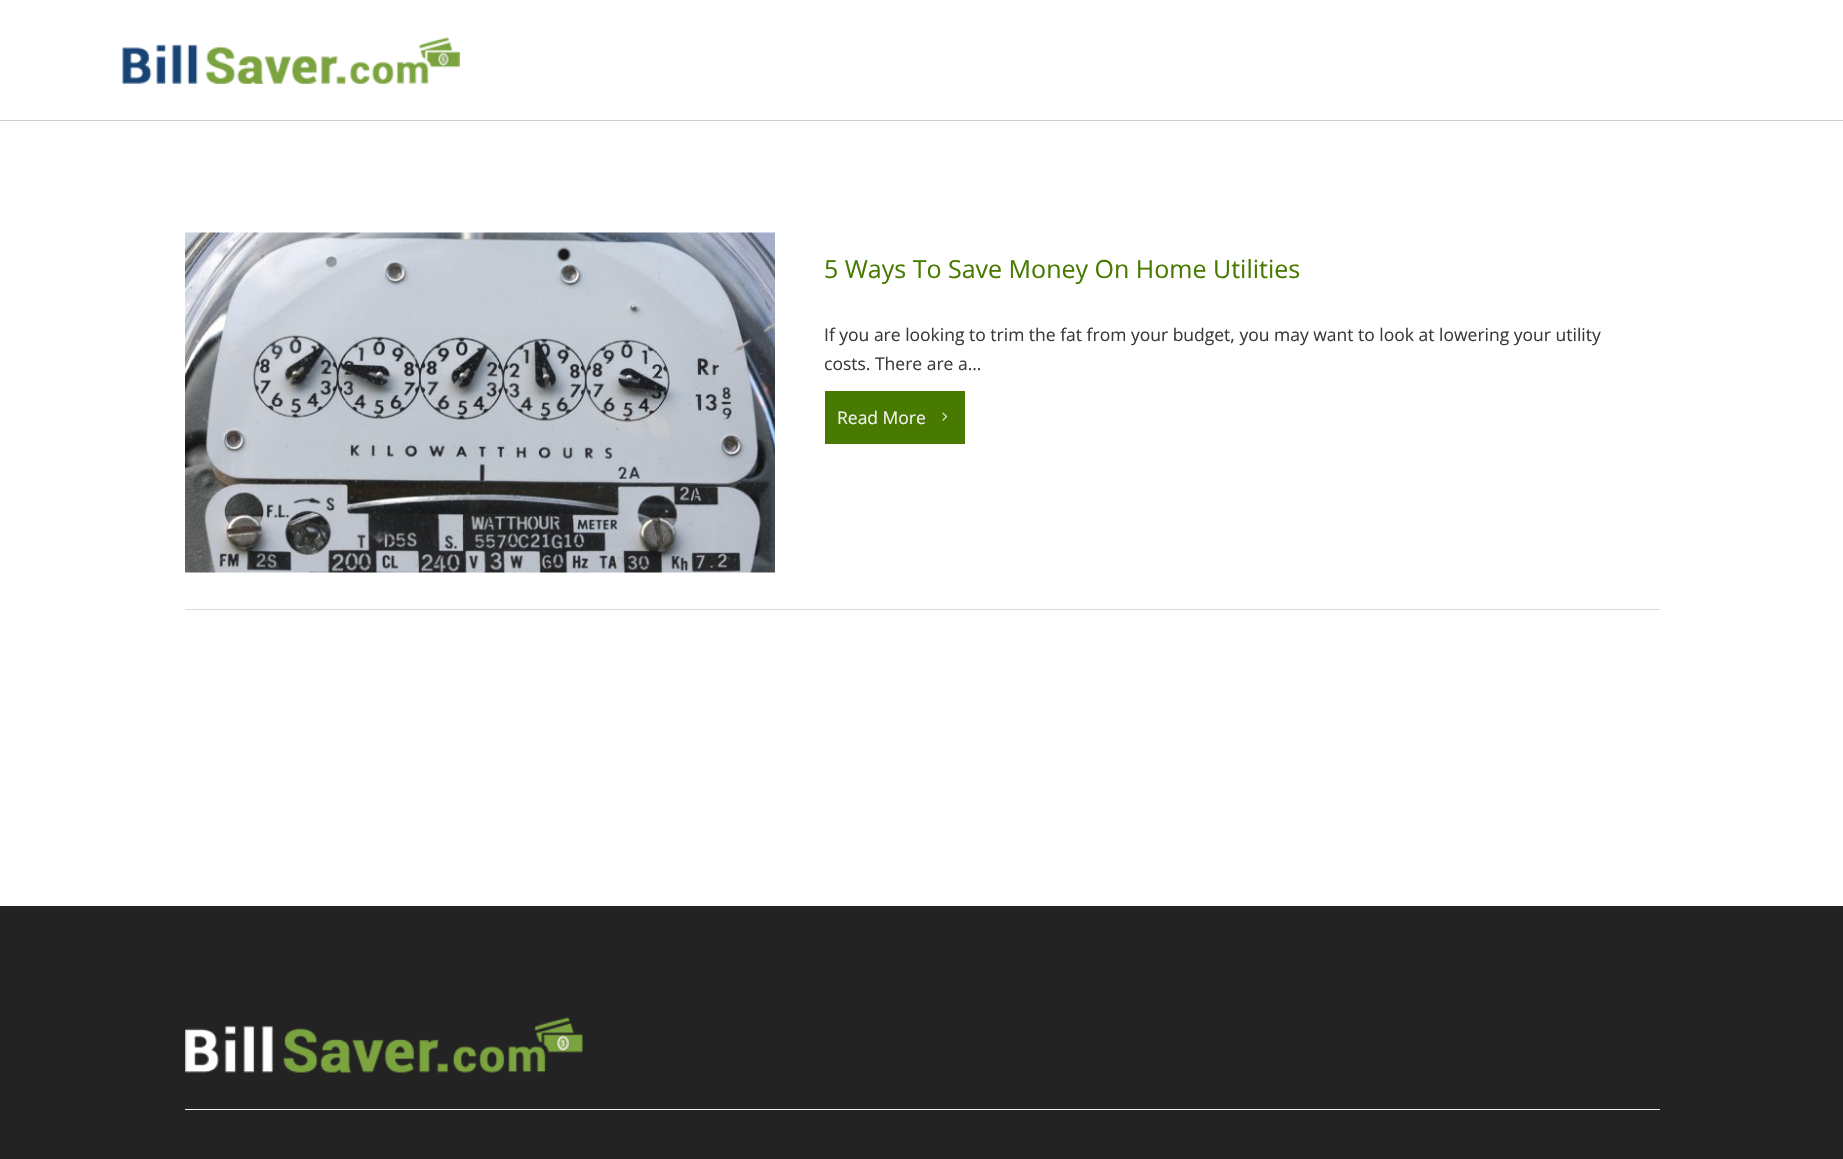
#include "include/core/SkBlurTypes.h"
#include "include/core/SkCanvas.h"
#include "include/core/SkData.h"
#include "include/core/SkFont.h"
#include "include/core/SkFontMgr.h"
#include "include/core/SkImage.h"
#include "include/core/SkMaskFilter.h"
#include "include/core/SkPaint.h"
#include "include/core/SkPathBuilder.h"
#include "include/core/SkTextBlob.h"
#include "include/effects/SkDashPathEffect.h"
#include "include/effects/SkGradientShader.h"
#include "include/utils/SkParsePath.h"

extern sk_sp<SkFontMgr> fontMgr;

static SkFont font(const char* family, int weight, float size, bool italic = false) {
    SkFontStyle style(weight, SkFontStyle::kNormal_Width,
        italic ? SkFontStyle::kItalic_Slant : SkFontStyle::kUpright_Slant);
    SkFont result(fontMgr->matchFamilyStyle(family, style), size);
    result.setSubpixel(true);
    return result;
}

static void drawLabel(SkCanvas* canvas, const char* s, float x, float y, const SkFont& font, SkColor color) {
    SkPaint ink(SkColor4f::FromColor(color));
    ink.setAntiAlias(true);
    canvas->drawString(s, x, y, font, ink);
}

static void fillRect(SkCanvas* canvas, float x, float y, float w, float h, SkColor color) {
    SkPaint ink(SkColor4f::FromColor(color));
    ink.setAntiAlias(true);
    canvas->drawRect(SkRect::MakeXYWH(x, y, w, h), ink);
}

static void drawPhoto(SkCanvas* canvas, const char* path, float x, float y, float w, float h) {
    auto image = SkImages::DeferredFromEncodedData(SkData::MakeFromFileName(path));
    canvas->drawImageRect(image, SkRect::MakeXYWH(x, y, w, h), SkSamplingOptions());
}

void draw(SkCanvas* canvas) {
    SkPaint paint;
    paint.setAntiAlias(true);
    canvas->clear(0xFFFFFFFF);
    fillRect(canvas, 0, 120, 1843, 1, 0xFFCECECE);
    drawPhoto(canvas, "assets/img1.png", 122, 37, 338, 47);
    fillRect(canvas, 185, 609, 1475, 1, 0xFFDBDBDB);
    drawPhoto(canvas, "assets/img2.png", 185, 232, 590, 341);
    SkFont font1 = font("Open Sans", 400, 25);
    drawLabel(canvas, "5 Ways To Save Money On Home Utilities", 824, 278, font1, 0xFF497A00);
    SkFont font2 = font("Open Sans", 400, 17.5f);
    drawLabel(canvas, "If you are looking to trim the fat from your budget, you may want to look at lowering your utility", 824, 341, font2, 0xFF3A3A3A);
    drawLabel(canvas, "costs. There are a...", 824, 370, font2, 0xFF3A3A3A);
    fillRect(canvas, 825, 391, 140, 53, 0xFF497A00);
    drawLabel(canvas, "Read More", 837, 424, font2, 0xFFF3F3F3);
    drawPhoto(canvas, "assets/img3.png", 942, 412, 5, 9);
    fillRect(canvas, 0, 906, 1843, 253, 0xFF232323);
    drawPhoto(canvas, "assets/img4.png", 185, 1017, 398, 56);
    fillRect(canvas, 185, 1109, 1475, 1, 0xFFF3F3F3);
}
